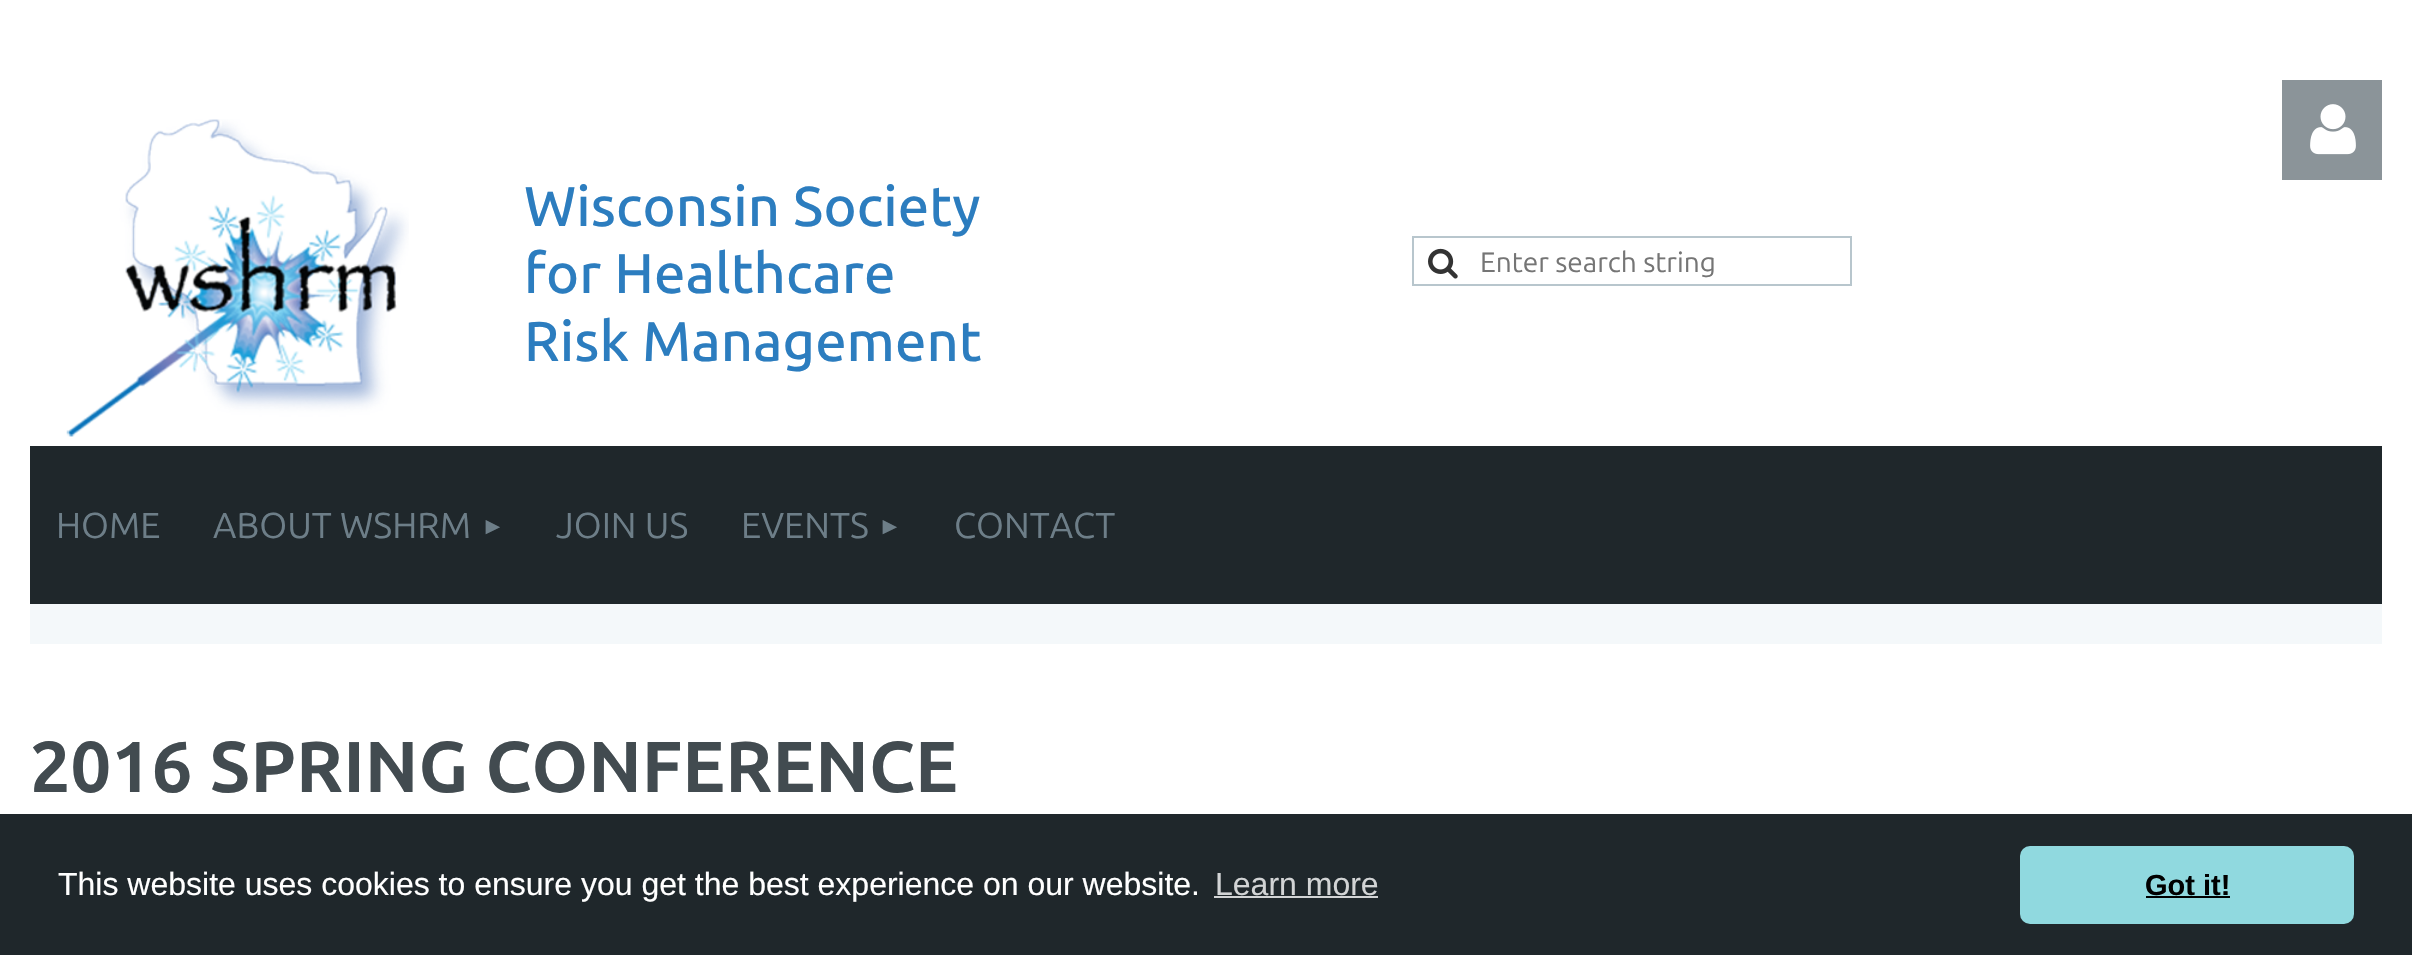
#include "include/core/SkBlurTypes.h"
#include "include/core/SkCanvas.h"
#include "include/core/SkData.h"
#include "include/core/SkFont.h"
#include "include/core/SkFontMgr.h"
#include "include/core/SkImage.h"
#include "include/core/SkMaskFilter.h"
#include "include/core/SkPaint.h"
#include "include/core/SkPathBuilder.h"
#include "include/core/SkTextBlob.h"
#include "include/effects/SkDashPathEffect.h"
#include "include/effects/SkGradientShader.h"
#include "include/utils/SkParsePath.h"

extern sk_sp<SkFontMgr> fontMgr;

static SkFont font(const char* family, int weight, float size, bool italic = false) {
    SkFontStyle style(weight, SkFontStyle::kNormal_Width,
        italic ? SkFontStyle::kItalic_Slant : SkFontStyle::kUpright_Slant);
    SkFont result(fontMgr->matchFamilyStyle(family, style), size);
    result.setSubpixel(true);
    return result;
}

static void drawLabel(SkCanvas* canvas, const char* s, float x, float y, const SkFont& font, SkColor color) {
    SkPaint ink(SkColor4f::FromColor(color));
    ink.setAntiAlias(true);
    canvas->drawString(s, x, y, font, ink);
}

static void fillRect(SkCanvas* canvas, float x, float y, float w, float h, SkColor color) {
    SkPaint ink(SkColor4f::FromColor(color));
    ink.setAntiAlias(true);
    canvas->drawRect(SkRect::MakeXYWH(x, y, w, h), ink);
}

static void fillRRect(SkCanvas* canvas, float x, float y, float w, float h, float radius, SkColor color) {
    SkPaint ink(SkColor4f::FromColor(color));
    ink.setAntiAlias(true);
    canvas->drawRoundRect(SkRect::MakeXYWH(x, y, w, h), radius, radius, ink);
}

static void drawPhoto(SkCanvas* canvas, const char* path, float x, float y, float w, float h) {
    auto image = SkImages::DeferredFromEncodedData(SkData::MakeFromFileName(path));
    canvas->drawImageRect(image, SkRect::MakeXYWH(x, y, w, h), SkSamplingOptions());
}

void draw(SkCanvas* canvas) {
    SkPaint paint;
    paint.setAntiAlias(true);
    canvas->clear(0xFFFFFFFF);
    drawPhoto(canvas, "assets/img1.png", 66, 119, 343, 318);
    SkFont font1 = font("Ubuntu", 500, 56);
    drawLabel(canvas, "Wisconsin Society", 524, 226, font1, 0xFF2C7DBF);
    drawLabel(canvas, "for Healthcare", 524, 293, font1, 0xFF2C7DBF);
    drawLabel(canvas, "Risk Management", 524, 361, font1, 0xFF2C7DBF);
    fillRect(canvas, 2282, 80, 100, 100, 0xFF8B9499);
    drawPhoto(canvas, "assets/img2.png", 2310, 104, 46, 51);
    paint.setStroke(true);
    paint.setStrokeWidth(2);
    paint.setColor(0xFFB8C6CD);
    canvas->drawRect(SkRect::MakeXYWH(1413, 237, 438, 48), paint);
    drawPhoto(canvas, "assets/img3.png", 1428, 248, 30, 31);
    SkFont font2 = font("Ubuntu", 400, 28);
    drawLabel(canvas, "Enter search string", 1480, 272, font2, 0xFF757575);
    fillRect(canvas, 30, 604, 2352, 40, 0xFFF4F8FA);
    fillRect(canvas, 30, 446, 2352, 158, 0xFF1F272B);
    SkFont font3 = font("Ubuntu", 400, 36);
    drawLabel(canvas, "HOME", 56, 538, font3, 0xFF6D7E88);
    drawLabel(canvas, "ABOUT WSHRM", 213, 538, font3, 0xFF6D7E88);
    SkFont font4 = font("Liberation Sans", 400, 24);
    drawLabel(canvas, "►", 481, 534, font4, 0xFF6D7E88);
    drawLabel(canvas, "JOIN US", 556, 538, font3, 0xFF6D7E88);
    drawLabel(canvas, "EVENTS", 741, 538, font3, 0xFF6D7E88);
    drawLabel(canvas, "►", 878, 534, font4, 0xFF6D7E88);
    drawLabel(canvas, "CONTACT", 954, 538, font3, 0xFF6D7E88);
    SkFont font5 = font("Ubuntu", 700, 72);
    drawLabel(canvas, "2016 SPRING CONFERENCE", 30, 792, font5, 0xFF424B50);
    fillRect(canvas, 0, 814, 2412, 141, 0xFF1F272B);
    SkFont font6 = font("Liberation Sans", 400, 32);
    drawLabel(canvas, "This website uses cookies to ensure you get the best experience on our website.", 58, 895, font6, 0xFFFFFFFF);
    drawLabel(canvas, "Learn more", 1215, 895, font6, 0xFFD2D4D5);
    fillRect(canvas, 1214, 896, 164, 2, 0xFFD2D4D5);
    fillRRect(canvas, 2020, 846, 334, 78, 10, 0xFF90D9DF);
    SkFont font7 = font("Liberation Sans", 700, 29);
    drawLabel(canvas, "Got it!", 2145, 895, font7, 0xFF000000);
    fillRect(canvas, 2146, 896, 84, 2, 0xFF000000);
}
